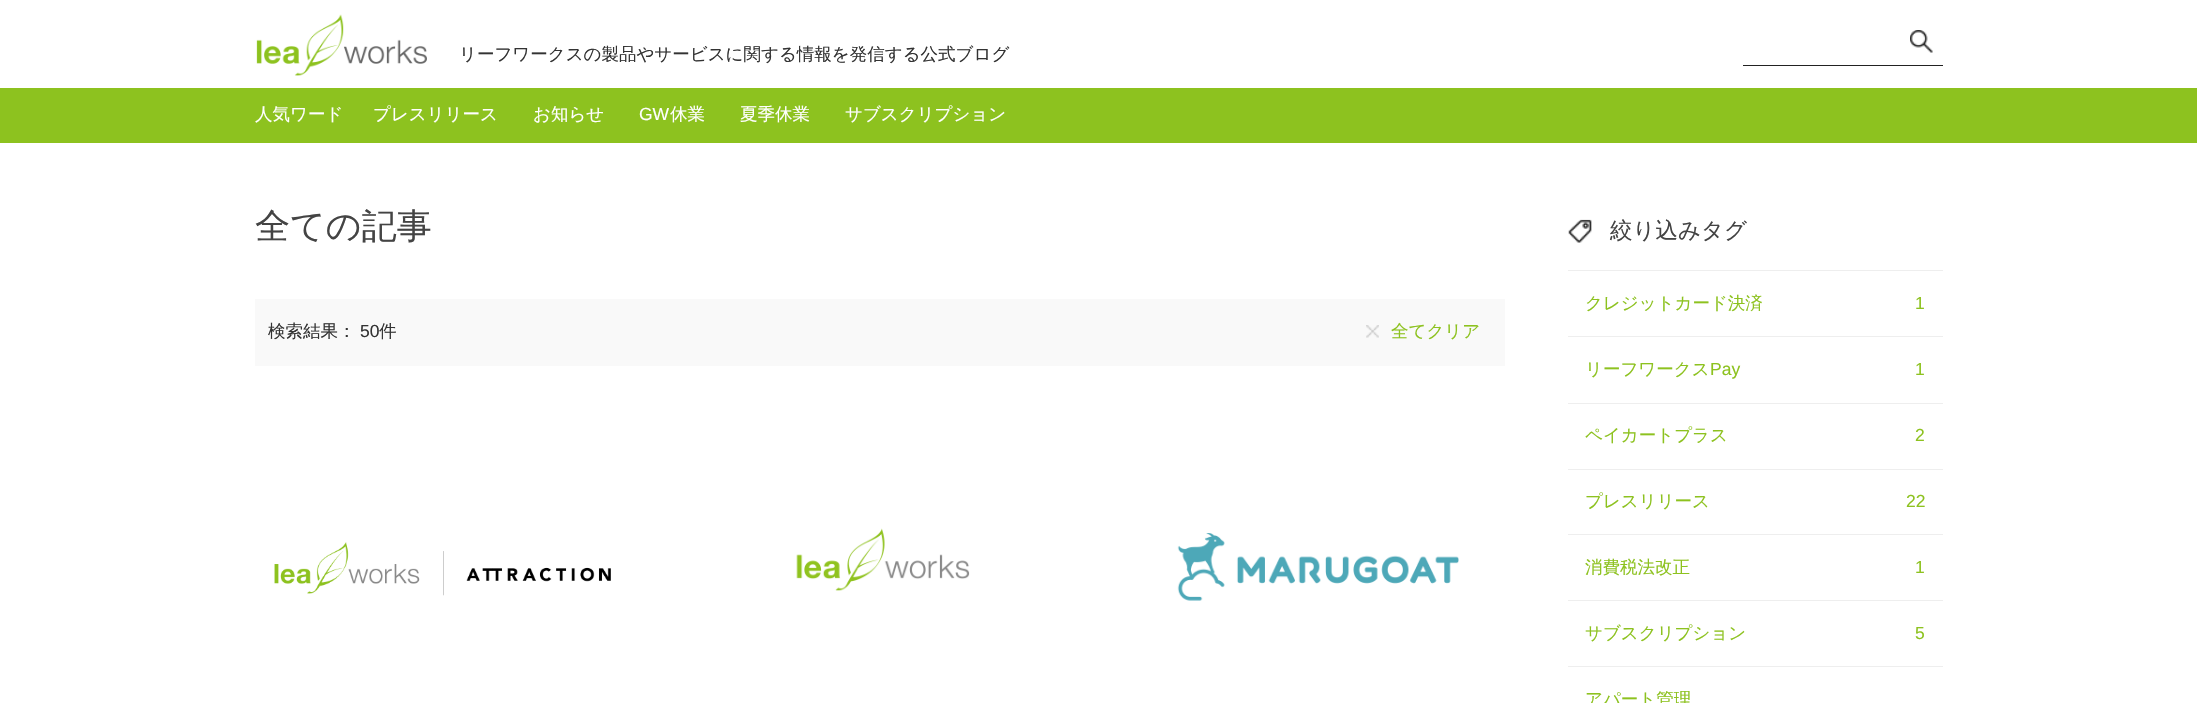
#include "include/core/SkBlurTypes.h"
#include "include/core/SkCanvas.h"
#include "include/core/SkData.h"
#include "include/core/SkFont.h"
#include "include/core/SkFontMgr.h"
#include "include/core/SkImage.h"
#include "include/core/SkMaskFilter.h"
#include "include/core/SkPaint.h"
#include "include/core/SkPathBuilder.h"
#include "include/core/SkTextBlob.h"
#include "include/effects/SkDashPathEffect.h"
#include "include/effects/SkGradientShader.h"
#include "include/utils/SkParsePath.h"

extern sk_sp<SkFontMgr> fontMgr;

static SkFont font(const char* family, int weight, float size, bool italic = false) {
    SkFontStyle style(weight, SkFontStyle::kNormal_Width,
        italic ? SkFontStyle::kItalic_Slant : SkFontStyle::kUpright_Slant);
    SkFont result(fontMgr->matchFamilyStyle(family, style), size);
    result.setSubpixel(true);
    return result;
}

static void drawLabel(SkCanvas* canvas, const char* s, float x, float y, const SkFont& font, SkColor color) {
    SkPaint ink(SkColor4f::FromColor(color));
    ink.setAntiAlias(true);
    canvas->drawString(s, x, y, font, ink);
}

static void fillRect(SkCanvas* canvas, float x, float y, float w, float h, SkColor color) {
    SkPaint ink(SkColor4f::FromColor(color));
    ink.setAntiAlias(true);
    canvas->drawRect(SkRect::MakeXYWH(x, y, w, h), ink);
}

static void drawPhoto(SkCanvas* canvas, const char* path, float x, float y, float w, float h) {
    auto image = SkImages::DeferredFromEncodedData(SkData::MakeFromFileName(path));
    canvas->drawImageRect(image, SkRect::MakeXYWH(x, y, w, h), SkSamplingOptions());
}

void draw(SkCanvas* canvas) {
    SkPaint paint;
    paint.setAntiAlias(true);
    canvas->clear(0xFFFFFFFF);
    drawPhoto(canvas, "assets/img1.png", 256, 14, 171, 62);
    SkFont font1 = font("WenQuanYi Zen Hei", 500, 17.5f);
    drawLabel(canvas, "リーフワークスの製品やサービスに関する情報を発信する公式ブログ", 459, 60, font1, 0xFF333333);
    fillRect(canvas, 1743, 65, 200, 1, 0xFF222222);
    drawPhoto(canvas, "assets/img2.png", 1910, 30, 23, 23);
    fillRect(canvas, 0, 88, 2197, 55, 0xFF8DC21F);
    drawLabel(canvas, "人気ワード", 255, 120, font1, 0xFFFFFFFF);
    drawLabel(canvas, "プレスリリース", 373, 120, font1, 0xFFFFFFFF);
    drawLabel(canvas, "お知らせ", 533, 120, font1, 0xFFFFFFFF);
    SkFont font2 = font("Liberation Sans", 400, 17.5f);
    drawLabel(canvas, "GW", 639, 120, font2, 0xFFFFFFFF);
    drawLabel(canvas, "休業", 670, 120, font1, 0xFFFFFFFF);
    drawLabel(canvas, "夏季休業", 740, 120, font1, 0xFFFFFFFF);
    drawLabel(canvas, "サブスクリプション", 845, 120, font1, 0xFFFFFFFF);
    SkFont font3 = font("WenQuanYi Zen Hei", 500, 35);
    drawLabel(canvas, "全ての記事", 255, 238, font3, 0xFF444444);
    fillRect(canvas, 255, 299, 1250, 67, 0xFFF9F9F9);
    drawLabel(canvas, "検索結果：", 268, 337, font1, 0xFF333333);
    drawLabel(canvas, "50", 360, 337, font2, 0xFF333333);
    drawLabel(canvas, "件", 379, 337, font1, 0xFF333333);
    drawPhoto(canvas, "assets/img3.png", 1366, 325, 13, 13);
    drawLabel(canvas, "全てクリア", 1391, 337, font1, 0xFF8DC21F);
    drawPhoto(canvas, "assets/img4.png", 274, 542, 337, 54);
    drawPhoto(canvas, "assets/img5.png", 796, 528, 174, 63);
    drawPhoto(canvas, "assets/img6.png", 1177, 533, 282, 68);
    drawPhoto(canvas, "assets/img7.png", 1568, 219, 24, 24);
    fillRect(canvas, 1568, 270, 375, 1, 0xFFEEEEEE);
    SkFont font4 = font("WenQuanYi Zen Hei", 500, 22.5f);
    drawLabel(canvas, "絞り込みタグ", 1610, 238, font4, 0xFF444444);
    fillRect(canvas, 1568, 336, 375, 1, 0xFFEEEEEE);
    drawLabel(canvas, "クレジットカード決済", 1585, 309, font1, 0xFF8DC21F);
    drawLabel(canvas, "1", 1915, 309, font2, 0xFF8DC21F);
    fillRect(canvas, 1568, 403, 375, 1, 0xFFEEEEEE);
    drawLabel(canvas, "リーフワークス", 1585, 375, font1, 0xFF8DC21F);
    drawLabel(canvas, "Pay", 1710, 375, font2, 0xFF8DC21F);
    drawLabel(canvas, "1", 1915, 375, font2, 0xFF8DC21F);
    fillRect(canvas, 1568, 469, 375, 1, 0xFFEEEEEE);
    drawLabel(canvas, "ペイカートプラス", 1585, 441, font1, 0xFF8DC21F);
    drawLabel(canvas, "2", 1915, 441, font2, 0xFF8DC21F);
    fillRect(canvas, 1568, 534, 375, 1, 0xFFEEEEEE);
    drawLabel(canvas, "プレスリリース", 1585, 507, font1, 0xFF8DC21F);
    drawLabel(canvas, "22", 1906, 507, font2, 0xFF8DC21F);
    fillRect(canvas, 1568, 600, 375, 1, 0xFFEEEEEE);
    drawLabel(canvas, "消費税法改正", 1585, 573, font1, 0xFF8DC21F);
    drawLabel(canvas, "1", 1915, 573, font2, 0xFF8DC21F);
    fillRect(canvas, 1568, 666, 375, 1, 0xFFEEEEEE);
    drawLabel(canvas, "サブスクリプション", 1585, 639, font1, 0xFF8DC21F);
    drawLabel(canvas, "5", 1915, 639, font2, 0xFF8DC21F);
    drawLabel(canvas, "アパート管理", 1585, 705, font1, 0xFF8DC21F);
}
